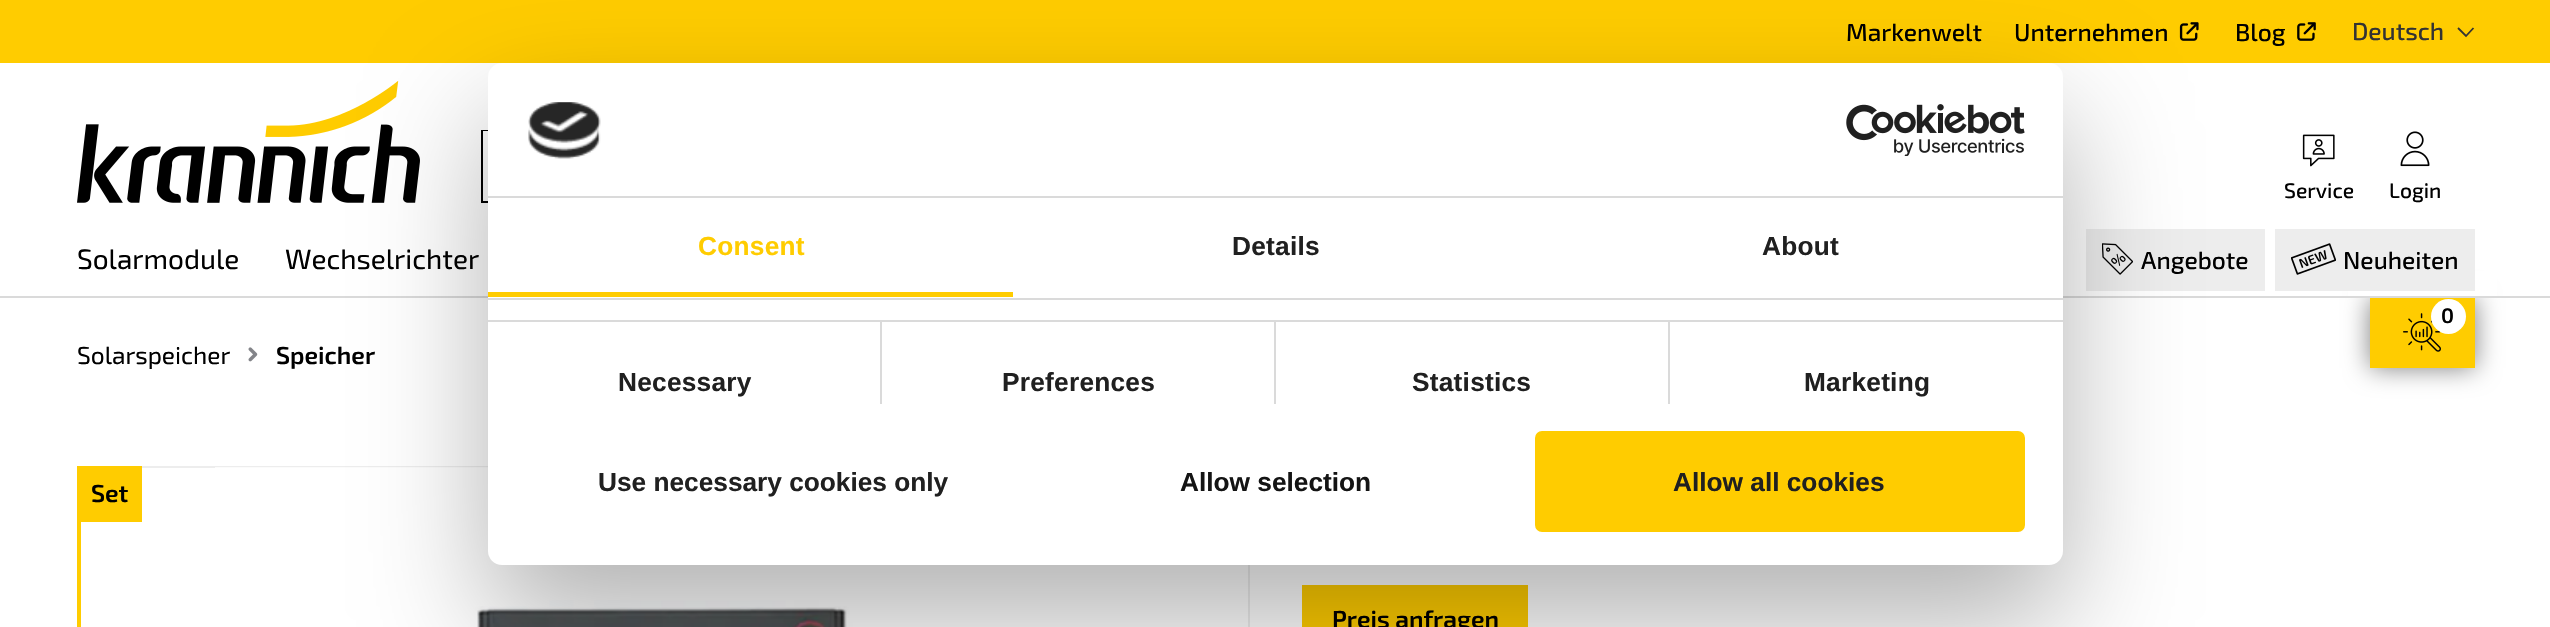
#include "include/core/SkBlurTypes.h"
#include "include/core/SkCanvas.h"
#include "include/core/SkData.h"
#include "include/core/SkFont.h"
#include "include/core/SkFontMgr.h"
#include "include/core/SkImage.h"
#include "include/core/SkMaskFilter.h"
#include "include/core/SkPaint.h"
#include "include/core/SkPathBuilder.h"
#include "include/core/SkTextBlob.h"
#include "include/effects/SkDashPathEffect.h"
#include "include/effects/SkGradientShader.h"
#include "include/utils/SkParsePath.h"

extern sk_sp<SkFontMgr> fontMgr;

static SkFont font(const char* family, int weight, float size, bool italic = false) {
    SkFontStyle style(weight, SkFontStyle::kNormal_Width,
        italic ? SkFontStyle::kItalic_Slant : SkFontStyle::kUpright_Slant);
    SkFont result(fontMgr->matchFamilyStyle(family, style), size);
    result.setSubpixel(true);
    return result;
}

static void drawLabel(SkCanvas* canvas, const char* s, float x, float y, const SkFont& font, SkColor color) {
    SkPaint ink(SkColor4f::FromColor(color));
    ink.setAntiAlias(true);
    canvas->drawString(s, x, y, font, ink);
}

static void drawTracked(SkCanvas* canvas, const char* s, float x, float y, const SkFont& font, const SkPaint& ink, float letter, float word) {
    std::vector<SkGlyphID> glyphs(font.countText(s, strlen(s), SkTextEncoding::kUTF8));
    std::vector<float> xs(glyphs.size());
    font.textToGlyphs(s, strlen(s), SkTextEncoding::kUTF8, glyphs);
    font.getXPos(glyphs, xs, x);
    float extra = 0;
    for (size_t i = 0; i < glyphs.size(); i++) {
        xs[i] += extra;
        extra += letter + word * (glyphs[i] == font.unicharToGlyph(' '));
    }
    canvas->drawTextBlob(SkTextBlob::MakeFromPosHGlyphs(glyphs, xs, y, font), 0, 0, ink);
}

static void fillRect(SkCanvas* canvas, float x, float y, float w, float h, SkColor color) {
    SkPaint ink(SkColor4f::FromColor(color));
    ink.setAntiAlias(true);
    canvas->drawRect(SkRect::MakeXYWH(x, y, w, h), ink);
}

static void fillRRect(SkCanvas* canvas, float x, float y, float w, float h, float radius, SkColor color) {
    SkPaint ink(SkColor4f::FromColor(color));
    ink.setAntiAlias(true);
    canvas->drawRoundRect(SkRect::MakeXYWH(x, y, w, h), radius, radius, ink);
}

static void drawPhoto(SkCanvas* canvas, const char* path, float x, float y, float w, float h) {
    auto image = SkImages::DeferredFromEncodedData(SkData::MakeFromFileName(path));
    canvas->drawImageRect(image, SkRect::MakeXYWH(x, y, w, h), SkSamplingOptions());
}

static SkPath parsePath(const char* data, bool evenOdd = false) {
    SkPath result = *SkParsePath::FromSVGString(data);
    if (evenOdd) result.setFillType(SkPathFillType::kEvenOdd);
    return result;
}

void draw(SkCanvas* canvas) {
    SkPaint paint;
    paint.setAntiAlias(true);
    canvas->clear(0xFFFFFFFF);
    paint.setColor(0x80000000);
    paint.setMaskFilter(SkMaskFilter::MakeBlur(kNormal_SkBlurStyle, 13));
    canvas->drawRect(SkRect::MakeXYWH(2370, 298, 105, 70), paint);
    paint.setMaskFilter(nullptr);
    fillRect(canvas, 2348, 271, 149, 25, 0xFFFFFFFF);
    fillRect(canvas, 0, 296, 2550, 2, 0xFFDADADA);
    fillRect(canvas, 0, 0, 2550, 63, 0xFFFFCC00);
    SkFont font1 = font("Exo 2", 500, 24.5f);
    drawLabel(canvas, "Markenwelt", 1846, 41, font1, 0xFF000000);
    drawLabel(canvas, "Unternehmen", 2014, 41, font1, 0xFF000000);
    drawPhoto(canvas, "assets/img1.png", 2179, 22, 20, 19);
    drawLabel(canvas, "Blog", 2235, 41, font1, 0xFF000000);
    drawPhoto(canvas, "assets/img2.png", 2297, 22, 19, 19);
    drawLabel(canvas, "Deutsch", 2352, 40, font1, 0xFF333333);
    paint.setStroke(true);
    paint.setStrokeWidth(1.8f);
    paint.setColor(0xFF333333);
    canvas->drawPath(parsePath("M2458 28L2466 36L2473.5 28"), paint);
    drawPhoto(canvas, "assets/img3.png", 77, 81, 343, 122);
    paint.setStrokeWidth(2);
    paint.setColor(0xFF000000);
    canvas->drawRect(SkRect::MakeXYWH(482, 131, 971, 71), paint);
    fillRect(canvas, 483, 131, 5, 1, 0xFFFFFFFF);
    drawPhoto(canvas, "assets/img4.png", 2302, 134, 33, 33);
    SkFont font2 = font("Exo 2", 500, 21);
    drawLabel(canvas, "Service", 2284, 198, font2, 0xFF000000);
    drawPhoto(canvas, "assets/img5.png", 2400, 131, 30, 36);
    drawLabel(canvas, "Login", 2389, 198, font2, 0xFF000000);
    SkFont font3 = font("Exo 2", 400, 28);
    drawLabel(canvas, "Solarmodule", 77, 269, font3, 0xFF000000);
    drawLabel(canvas, "Wechselrichter", 285, 269, font3, 0xFF000000);
    fillRect(canvas, 2086, 229, 179, 62, 0xFFEDEDED);
    drawPhoto(canvas, "assets/img6.png", 2102, 243, 31, 32);
    drawLabel(canvas, "Angebote", 2141, 269, font1, 0xFF000000);
    fillRect(canvas, 2275, 229, 200, 62, 0xFFEDEDED);
    drawPhoto(canvas, "assets/img7.png", 2291, 243, 45, 32);
    drawLabel(canvas, "Neuheiten", 2343, 269, font1, 0xFF000000);
    fillRect(canvas, 142, 466, 346, 2, 0xFFEDEDED);
    fillRect(canvas, 1248, 565, 2, 62, 0xFFEDEDED);
    drawPhoto(canvas, "assets/img12.png", 215, 467, 893, 160);
    fillRect(canvas, 1302, 585, 226, 42, 0xFFFFCC00);
    paint.setStroke(false);
    paint.setColor(0x4D000000);
    paint.setMaskFilter(SkMaskFilter::MakeBlur(kNormal_SkBlurStyle, 59.5f));
    canvas->drawRoundRect(SkRect::MakeXYWH(488, 119, 1575, 502), 14, 14, paint);
    paint.setMaskFilter(nullptr);
    fillRRect(canvas, 488, 63, 1575, 502, 14, 0xFFFFFFFF);
    fillRect(canvas, 488, 196, 1575, 2, 0xFFDADADA);
    drawPhoto(canvas, "assets/img8.png", 528, 102, 73, 57);
    drawPhoto(canvas, "assets/img9.png", 1846, 104, 179, 52);
    fillRect(canvas, 488, 298, 1575, 2, 0xFFDADADA);
    fillRect(canvas, 488, 292, 525, 5, 0xFFFFCC00);
    SkFont font4 = font("Liberation Sans", 700, 26.25f);
    paint.setColor(0xFFFFCC00);
    drawTracked(canvas, "Consent", 698, 255, font4, paint, 0.25f, 0);
    paint.setColor(0xFF202020);
    drawTracked(canvas, "Details", 1232, 255, font4, paint, 0.25f, 0);
    drawTracked(canvas, "About", 1762, 255, font4, paint, 0.25f, 0);
    fillRect(canvas, 488, 320, 1575, 2, 0xFFDADADA);
    fillRect(canvas, 880, 322, 2, 82, 0xFFDADADA);
    drawTracked(canvas, "Necessary", 618, 391, font4, paint, 0.25f, 0);
    fillRect(canvas, 1274, 322, 2, 82, 0xFFDADADA);
    drawTracked(canvas, "Preferences", 1002, 391, font4, paint, 0.25f, 0);
    fillRect(canvas, 1668, 322, 2, 82, 0xFFDADADA);
    drawTracked(canvas, "Statistics", 1412, 391, font4, paint, 0.25f, 0);
    drawTracked(canvas, "Marketing", 1804, 391, font4, paint, 0.25f, 0);
    drawLabel(canvas, "Use necessary cookies only", 598, 491, font4, 0xFF202020);
    drawLabel(canvas, "Allow selection", 1180, 491, font4, 0xFF141414);
    paint.setColor(0xFFFFCC00);
    canvas->drawRoundRect(SkRect::MakeXYWH(1537, 433, 486, 97), 5, 5, paint);
    paint.setStroke(true);
    paint.setStrokeWidth(4);
    canvas->drawRoundRect(SkRect::MakeXYWH(1537, 433, 486, 97), 5, 5, paint);
    drawLabel(canvas, "Allow all cookies", 1673, 491, font4, 0xFF202020);
    fillRect(canvas, 2370, 298, 105, 70, 0xFFFFCC00);
    drawPhoto(canvas, "assets/img10.png", 2403, 313, 38, 39);
    paint.setStroke(false);
    paint.setColor(0xFFFFFFFF);
    canvas->drawCircle(2448.5f, 316.5f, 17.5f, paint);
    SkFont font5 = font("Exo 2", 600, 21);
    drawLabel(canvas, "0", 2441, 323, font5, 0xFF000000);
    SkFont font6 = font("Exo 2", 400, 24.5f);
    drawLabel(canvas, "Solarspeicher", 77, 364, font6, 0xFF000000);
    drawPhoto(canvas, "assets/img11.png", 248, 347, 10, 15);
    SkFont font7 = font("Exo 2", 600, 24.5f);
    drawLabel(canvas, "Speicher", 276, 364, font7, 0xFF000000);
    fillRect(canvas, 77, 466, 65, 56, 0xFFFFCC00);
    drawLabel(canvas, "Set", 91, 502, font7, 0xFF000000);
    fillRect(canvas, 77, 522, 4, 105, 0xFFFFCC00);
    drawLabel(canvas, "Preis anfragen", 1332, 628, font7, 0xFF000000);
}
